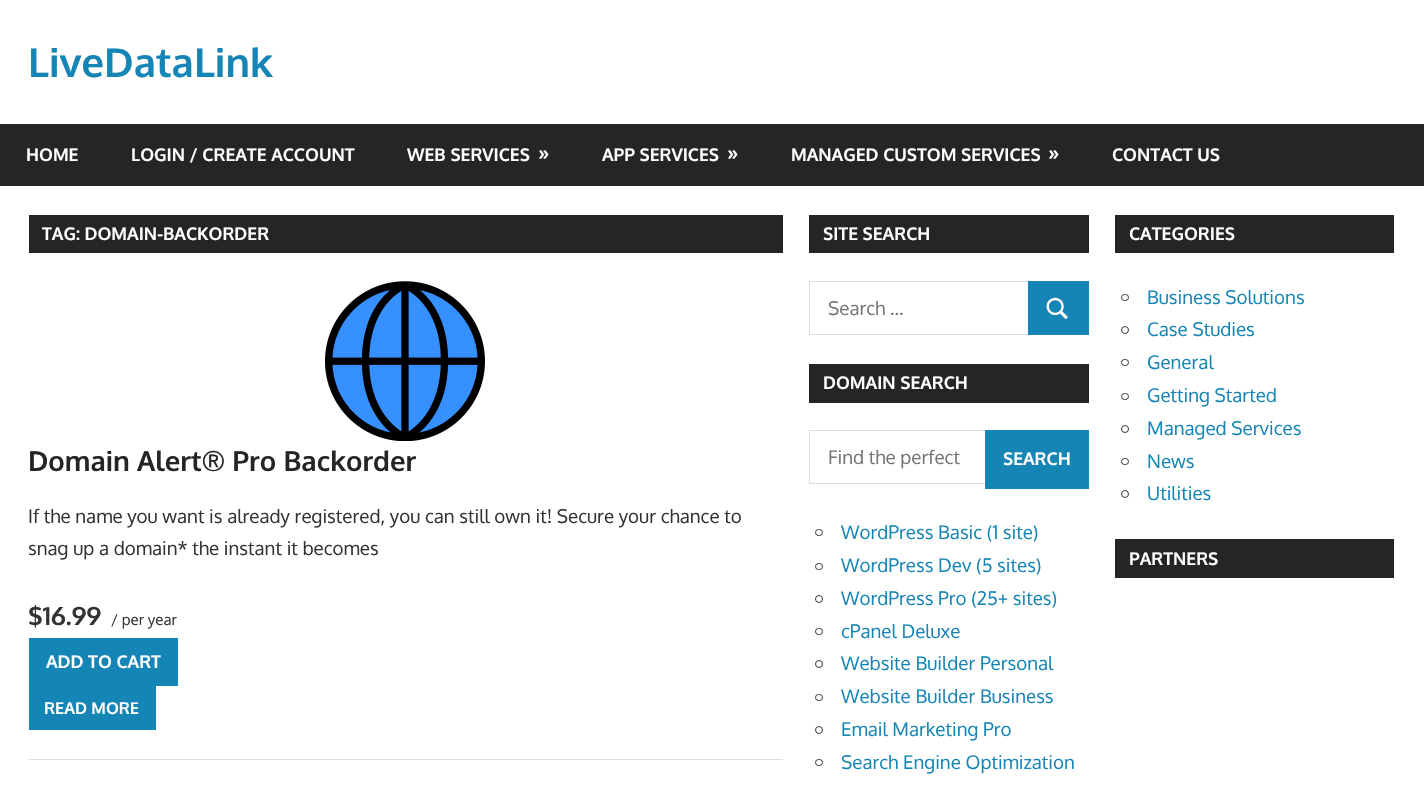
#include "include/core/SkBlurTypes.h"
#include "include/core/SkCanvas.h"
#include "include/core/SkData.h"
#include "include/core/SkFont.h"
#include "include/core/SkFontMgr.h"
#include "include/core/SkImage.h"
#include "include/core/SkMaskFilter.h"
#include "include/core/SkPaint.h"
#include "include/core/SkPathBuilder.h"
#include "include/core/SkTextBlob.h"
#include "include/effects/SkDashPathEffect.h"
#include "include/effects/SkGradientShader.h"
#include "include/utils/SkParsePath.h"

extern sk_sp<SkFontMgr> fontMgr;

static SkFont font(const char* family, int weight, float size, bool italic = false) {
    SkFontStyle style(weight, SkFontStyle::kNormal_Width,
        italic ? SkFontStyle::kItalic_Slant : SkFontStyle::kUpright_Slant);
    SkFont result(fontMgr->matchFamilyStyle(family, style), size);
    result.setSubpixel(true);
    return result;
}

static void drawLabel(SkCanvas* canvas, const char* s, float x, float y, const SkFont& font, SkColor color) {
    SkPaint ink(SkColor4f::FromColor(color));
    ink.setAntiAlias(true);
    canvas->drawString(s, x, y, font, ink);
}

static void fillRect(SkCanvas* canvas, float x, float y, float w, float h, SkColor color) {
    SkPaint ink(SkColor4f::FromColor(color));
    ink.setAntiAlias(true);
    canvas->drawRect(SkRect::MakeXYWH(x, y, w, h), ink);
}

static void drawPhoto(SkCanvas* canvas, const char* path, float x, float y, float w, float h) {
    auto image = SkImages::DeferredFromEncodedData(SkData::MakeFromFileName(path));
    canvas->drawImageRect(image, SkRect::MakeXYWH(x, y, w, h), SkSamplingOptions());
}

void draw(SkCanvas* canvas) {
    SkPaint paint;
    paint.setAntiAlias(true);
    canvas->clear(0xFFFFFFFF);
    SkFont font1 = font("Oxygen", 700, 40);
    drawLabel(canvas, "LiveDataLink", 28, 77, font1, 0xFF1585B5);
    fillRect(canvas, 0, 124, 1424, 62, 0xFF252525);
    SkFont font2 = font("Oxygen", 700, 17.5f);
    drawLabel(canvas, "HOME", 26, 161, font2, 0xFFFFFFFF);
    drawLabel(canvas, "LOGIN / CREATE ACCOUNT", 131, 161, font2, 0xFFFFFFFF);
    drawLabel(canvas, "WEB SERVICES", 407, 161, font2, 0xFFFFFFFF);
    SkFont font3 = font("Oxygen", 700, 20);
    drawLabel(canvas, "»", 538, 160, font3, 0xFFFFFFFF);
    drawLabel(canvas, "APP SERVICES", 602, 161, font2, 0xFFFFFFFF);
    drawLabel(canvas, "»", 727, 160, font3, 0xFFFFFFFF);
    drawLabel(canvas, "MANAGED CUSTOM SERVICES", 791, 161, font2, 0xFFFFFFFF);
    drawLabel(canvas, "»", 1048, 160, font3, 0xFFFFFFFF);
    drawLabel(canvas, "CONTACT US", 1112, 161, font2, 0xFFFFFFFF);
    fillRect(canvas, 29, 215, 754, 38, 0xFF252525);
    drawLabel(canvas, "TAG: DOMAIN-BACKORDER", 42, 240, font2, 0xFFFFFFFF);
    fillRect(canvas, 29, 759, 754, 1, 0xFFDDDDDD);
    drawPhoto(canvas, "assets/img1.png", 325, 281, 160, 160);
    SkFont font4 = font("Oxygen", 700, 27.5f);
    drawLabel(canvas, "Domain Alert® Pro Backorder", 28, 471, font4, 0xFF252525);
    SkFont font5 = font("Oxygen", 400, 18.75f);
    drawLabel(canvas, "If the name you want is already registered, you can still own it! Secure your chance to", 28, 523, font5, 0xFF333333);
    drawLabel(canvas, "snag up a domain* the instant it becomes", 28, 555, font5, 0xFF333333);
    SkFont font6 = font("Oxygen", 700, 25);
    drawLabel(canvas, "$16.99", 28, 625, font6, 0xFF333333);
    SkFont font7 = font("Oxygen", 400, 15);
    drawLabel(canvas, "/ per year", 111, 625, font7, 0xFF333333);
    fillRect(canvas, 29, 638, 149, 48, 0xFF1585B5);
    drawLabel(canvas, "ADD TO CART", 46, 668, font2, 0xFFFFFFFF);
    fillRect(canvas, 29, 686, 127, 44, 0xFF1585B5);
    SkFont font8 = font("Oxygen", 700, 16.25f);
    drawLabel(canvas, "READ MORE", 44, 714, font8, 0xFFFFFFFF);
    fillRect(canvas, 809, 215, 280, 38, 0xFF252525);
    drawLabel(canvas, "SITE SEARCH", 823, 240, font2, 0xFFFFFFFF);
    paint.setStroke(true);
    paint.setStrokeWidth(1);
    paint.setColor(0xFFDDDDDD);
    canvas->drawRect(SkRect::MakeXYWH(809.5f, 281.5f, 219, 53), paint);
    drawLabel(canvas, "Search …", 828, 315, font5, 0xFF757575);
    fillRect(canvas, 1028, 281, 61, 54, 0xFF1585B5);
    drawPhoto(canvas, "assets/img2.png", 1046, 297, 22, 23);
    fillRect(canvas, 809, 364, 280, 39, 0xFF252525);
    drawLabel(canvas, "DOMAIN SEARCH", 823, 389, font2, 0xFFFFFFFF);
    canvas->drawRect(SkRect::MakeXYWH(809.5f, 430.5f, 176, 53), paint);
    drawLabel(canvas, "Find the perfect", 828, 464, font5, 0xFF757575);
    fillRect(canvas, 985, 430, 104, 59, 0xFF1585B5);
    drawLabel(canvas, "SEARCH", 1003, 465, font2, 0xFFFFFFFF);
    paint.setColor(0xFF333333);
    canvas->drawRoundRect(SkRect::MakeXYWH(815.5f, 529.5f, 7, 6), 3, 3, paint);
    drawLabel(canvas, "WordPress Basic (1 site)", 841, 539, font5, 0xFF1585B5);
    canvas->drawRoundRect(SkRect::MakeXYWH(815.5f, 563.5f, 7, 6), 3, 3, paint);
    drawLabel(canvas, "WordPress Dev (5 sites)", 841, 572, font5, 0xFF1585B5);
    canvas->drawCircle(819, 599, 3.5f, paint);
    drawLabel(canvas, "WordPress Pro (25+ sites)", 841, 605, font5, 0xFF1585B5);
    canvas->drawRoundRect(SkRect::MakeXYWH(815.5f, 628.5f, 7, 6), 3, 3, paint);
    drawLabel(canvas, "cPanel Deluxe", 841, 638, font5, 0xFF1585B5);
    canvas->drawCircle(819, 664, 3.5f, paint);
    drawLabel(canvas, "Website Builder Personal", 841, 670, font5, 0xFF1585B5);
    canvas->drawRoundRect(SkRect::MakeXYWH(815.5f, 694.5f, 7, 6), 3, 3, paint);
    drawLabel(canvas, "Website Builder Business", 841, 703, font5, 0xFF1585B5);
    canvas->drawCircle(819, 730, 3.5f, paint);
    drawLabel(canvas, "Email Marketing Pro", 841, 736, font5, 0xFF1585B5);
    canvas->drawRoundRect(SkRect::MakeXYWH(815.5f, 759.5f, 7, 6), 3, 3, paint);
    drawLabel(canvas, "Search Engine Optimization", 841, 769, font5, 0xFF1585B5);
    fillRect(canvas, 1115, 215, 279, 38, 0xFF252525);
    drawLabel(canvas, "CATEGORIES", 1129, 240, font2, 0xFFFFFFFF);
    canvas->drawRoundRect(SkRect::MakeXYWH(1121.5f, 294.5f, 7, 6), 3, 3, paint);
    drawLabel(canvas, "Business Solutions", 1147, 304, font5, 0xFF1585B5);
    canvas->drawCircle(1125, 330, 3.5f, paint);
    drawLabel(canvas, "Case Studies", 1147, 336, font5, 0xFF1585B5);
    canvas->drawRoundRect(SkRect::MakeXYWH(1121.5f, 359.5f, 7, 6), 3, 3, paint);
    drawLabel(canvas, "General", 1147, 369, font5, 0xFF1585B5);
    canvas->drawRoundRect(SkRect::MakeXYWH(1121.5f, 393.5f, 7, 6), 3, 3, paint);
    drawLabel(canvas, "Getting Started", 1147, 402, font5, 0xFF1585B5);
    canvas->drawCircle(1125, 429, 3.5f, paint);
    drawLabel(canvas, "Managed Services", 1147, 435, font5, 0xFF1585B5);
    canvas->drawRoundRect(SkRect::MakeXYWH(1121.5f, 458.5f, 7, 6), 3, 3, paint);
    drawLabel(canvas, "News", 1147, 468, font5, 0xFF1585B5);
    canvas->drawCircle(1125, 494, 3.5f, paint);
    drawLabel(canvas, "Utilities", 1147, 500, font5, 0xFF1585B5);
    fillRect(canvas, 1115, 539, 279, 39, 0xFF252525);
    drawLabel(canvas, "PARTNERS", 1129, 565, font2, 0xFFFFFFFF);
}
